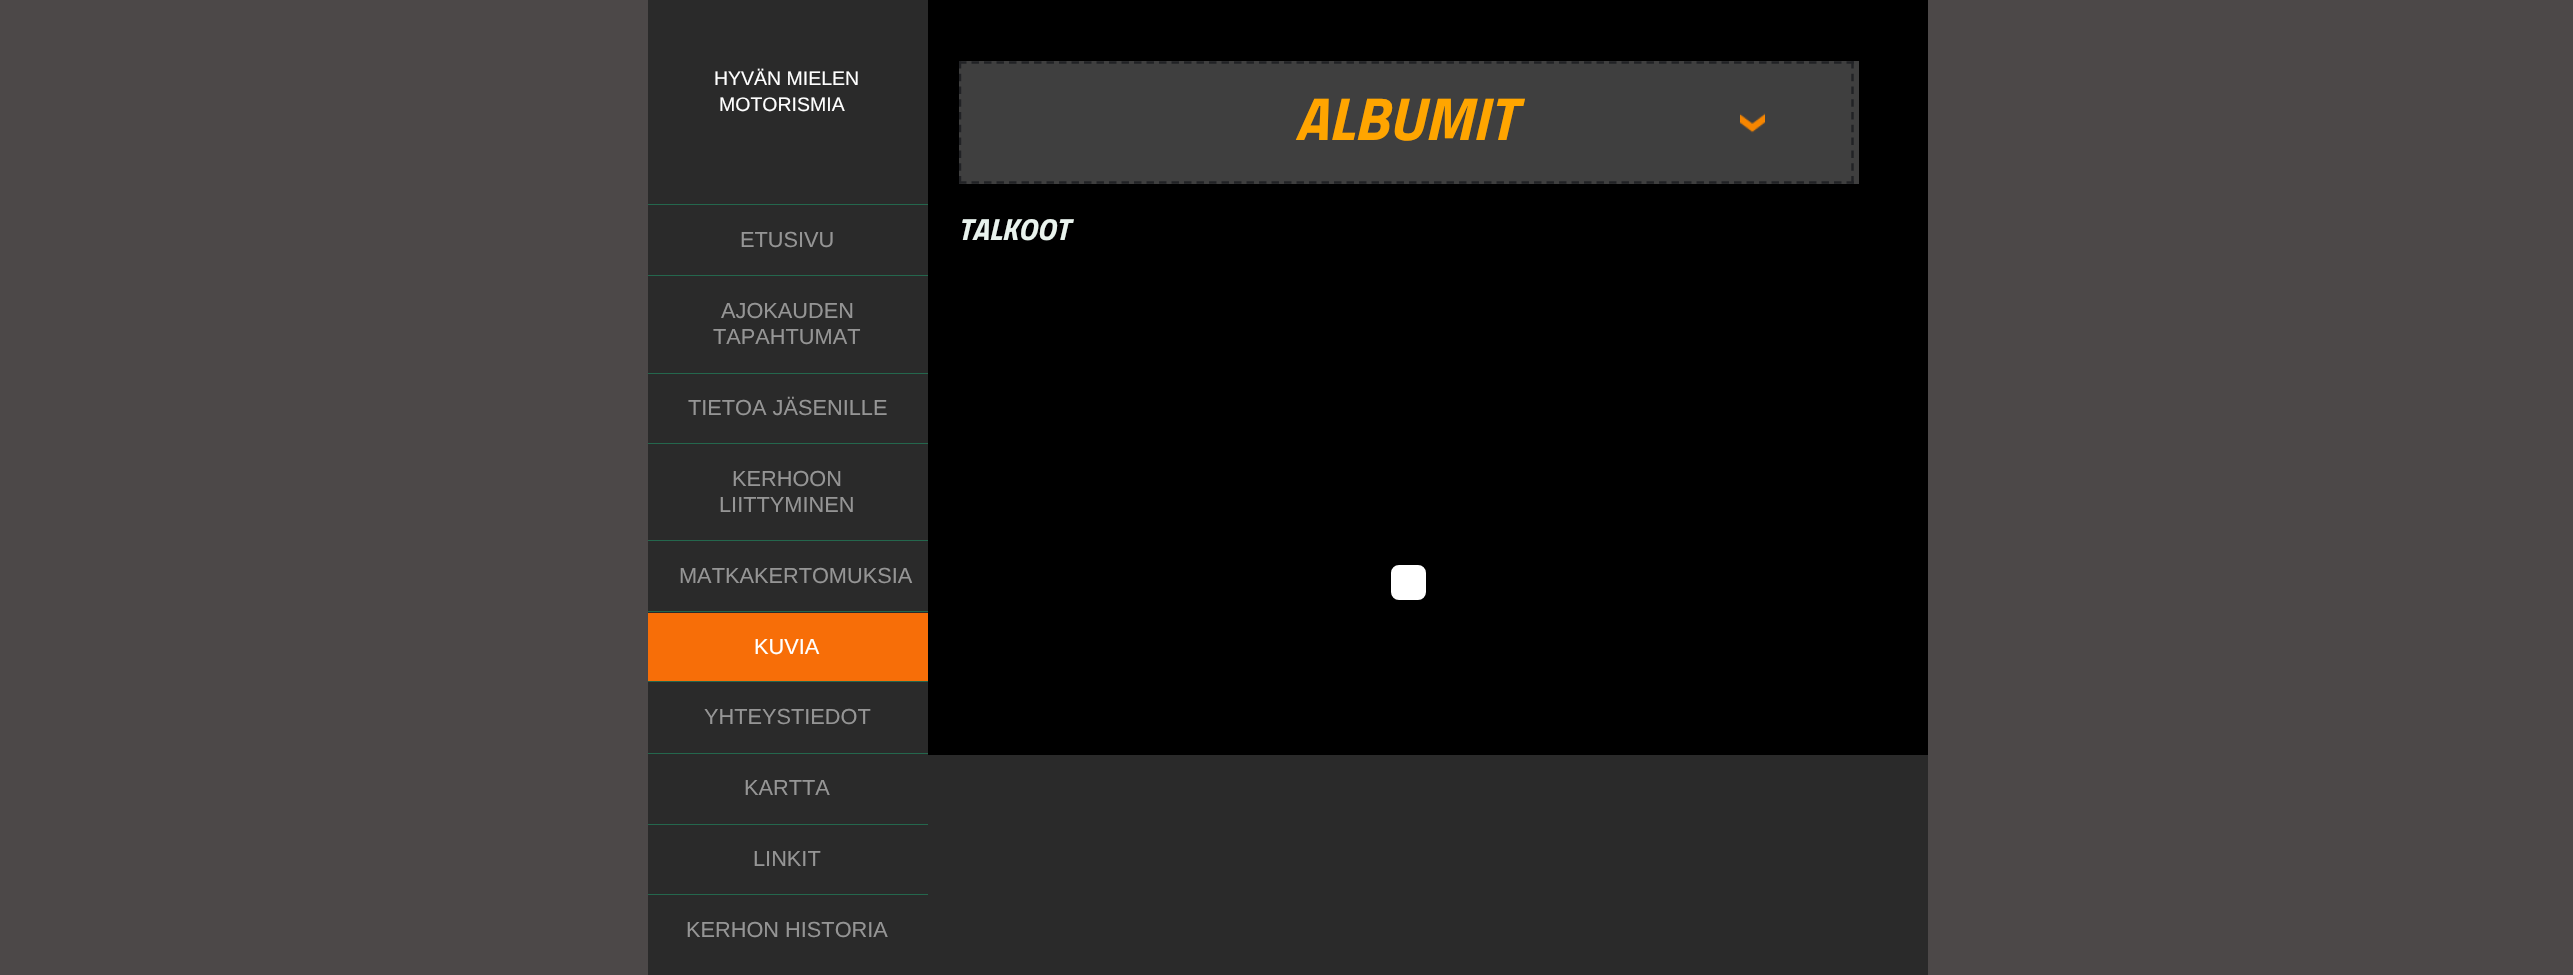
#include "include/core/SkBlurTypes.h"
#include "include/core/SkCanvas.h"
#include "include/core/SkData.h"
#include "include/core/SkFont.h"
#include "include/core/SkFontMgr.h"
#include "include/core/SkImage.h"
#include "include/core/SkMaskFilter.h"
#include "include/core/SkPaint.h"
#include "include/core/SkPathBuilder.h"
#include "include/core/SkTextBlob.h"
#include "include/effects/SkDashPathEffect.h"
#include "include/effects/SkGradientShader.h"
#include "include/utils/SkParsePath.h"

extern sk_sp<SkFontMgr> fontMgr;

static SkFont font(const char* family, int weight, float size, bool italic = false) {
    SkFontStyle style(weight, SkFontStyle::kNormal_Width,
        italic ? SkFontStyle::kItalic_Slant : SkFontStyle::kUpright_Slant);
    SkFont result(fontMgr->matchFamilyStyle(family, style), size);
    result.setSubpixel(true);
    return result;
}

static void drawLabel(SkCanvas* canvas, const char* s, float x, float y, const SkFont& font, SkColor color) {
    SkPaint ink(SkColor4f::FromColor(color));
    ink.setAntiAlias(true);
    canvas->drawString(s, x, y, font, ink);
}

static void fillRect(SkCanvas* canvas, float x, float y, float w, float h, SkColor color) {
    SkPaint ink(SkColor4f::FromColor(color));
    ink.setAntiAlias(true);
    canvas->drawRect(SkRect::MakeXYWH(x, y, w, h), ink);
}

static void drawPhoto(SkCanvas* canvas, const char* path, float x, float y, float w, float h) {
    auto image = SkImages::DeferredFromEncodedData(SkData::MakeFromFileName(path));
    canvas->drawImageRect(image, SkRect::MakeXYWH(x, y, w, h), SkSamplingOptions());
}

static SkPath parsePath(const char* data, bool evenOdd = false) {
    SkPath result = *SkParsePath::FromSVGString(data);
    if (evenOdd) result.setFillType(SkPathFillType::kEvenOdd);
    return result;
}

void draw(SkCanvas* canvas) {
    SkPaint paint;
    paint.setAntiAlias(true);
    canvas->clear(0xFF4C4848);
    fillRect(canvas, 648, 0, 1280, 975, 0xFF2A2A2A);
    SkFont font1 = font("Liberation Sans", 400, 19.5f);
    drawLabel(canvas, "HYVÄN MIELEN", 714, 85, font1, 0xFFFFFFFF);
    drawLabel(canvas, "MOTORISMIA", 719, 111, font1, 0xFFFFFFFF);
    fillRect(canvas, 648, 204, 280, 1, 0xFF24674D);
    SkFont font2 = font("Liberation Sans", 400, 21.75f);
    drawLabel(canvas, "ETUSIVU", 740, 247, font2, 0xFF959595);
    fillRect(canvas, 648, 275, 280, 1, 0xFF24674D);
    drawLabel(canvas, "AJOKAUDEN", 721, 318, font2, 0xFF959595);
    drawLabel(canvas, "TAPAHTUMAT", 713, 344, font2, 0xFF959595);
    fillRect(canvas, 648, 373, 280, 1, 0xFF24674D);
    drawLabel(canvas, "TIETOA JÄSENILLE", 688, 415, font2, 0xFF959595);
    fillRect(canvas, 648, 443, 280, 1, 0xFF24674D);
    drawLabel(canvas, "KERHOON", 732, 486, font2, 0xFF959595);
    drawLabel(canvas, "LIITTYMINEN", 719, 512, font2, 0xFF959595);
    fillRect(canvas, 648, 540, 280, 1, 0xFF24674D);
    drawLabel(canvas, "MATKAKERTOMUKSIA", 679, 583, font2, 0xFF959595);
    fillRect(canvas, 648, 611, 280, 1, 0xFF24674D);
    fillRect(canvas, 648, 613, 280, 68, 0xFFF76E08);
    drawLabel(canvas, "KUVIA", 754, 654, font2, 0xFFFFFFFF);
    fillRect(canvas, 648, 681, 280, 1, 0xFF24674D);
    drawLabel(canvas, "YHTEYSTIEDOT", 704, 724, font2, 0xFF959595);
    fillRect(canvas, 648, 753, 280, 1, 0xFF24674D);
    drawLabel(canvas, "KARTTA", 744, 795, font2, 0xFF959595);
    fillRect(canvas, 648, 824, 280, 1, 0xFF24674D);
    drawLabel(canvas, "LINKIT", 753, 866, font2, 0xFF959595);
    fillRect(canvas, 648, 894, 280, 1, 0xFF24674D);
    drawLabel(canvas, "KERHON HISTORIA", 686, 937, font2, 0xFF959595);
    fillRect(canvas, 928, 0, 1000, 755, 0xFF000000);
    fillRect(canvas, 959, 61, 900, 123, 0xFF3F3F3F);
    drawPhoto(canvas, "assets/img1.png", 1740, 113, 25, 20);
    paint.setStroke(true);
    paint.setStrokeWidth(2.5f);
    paint.setColor(0xFF212225);
    paint.setPathEffect(SkDashPathEffect::Make({{7.5f, 5}}, 0));
    canvas->drawPath(parsePath("M959 62.5H1854"), paint);
    paint.setPathEffect(nullptr);
    paint.setPathEffect(SkDashPathEffect::Make({{7.5f, 5.27f}}, 0));
    canvas->drawPath(parsePath("M1852.5 61V184"), paint);
    paint.setPathEffect(nullptr);
    paint.setPathEffect(SkDashPathEffect::Make({{7.5f, 5}}, 0));
    canvas->drawPath(parsePath("M959 182.5H1854"), paint);
    paint.setPathEffect(nullptr);
    canvas->save();
    canvas->clipRect(SkRect::MakeXYWH(959, 36, 900, 173));
    paint.setPathEffect(SkDashPathEffect::Make({{7.5f, 5.27f}}, 0));
    canvas->drawPath(parsePath("M960 61V184"), paint);
    paint.setPathEffect(nullptr);
    canvas->restore();
    SkFont font3 = font("Titillium Web", 700, 60.5f, true);
    drawLabel(canvas, "ALBUMIT", 1295, 140, font3, 0xFFFFA500);
    SkFont font4 = font("Titillium Web", 700, 30.5f, true);
    drawLabel(canvas, "TALKOOT", 958, 240, font4, 0xFFE9F3ED);
    paint.setStroke(false);
    paint.setColor(0xFFFFFFFF);
    canvas->drawRoundRect(SkRect::MakeXYWH(1392.5f, 566.5f, 32, 32), 6.5f, 6.5f, paint);
    paint.setStroke(true);
    paint.setStrokeWidth(3);
    canvas->drawRoundRect(SkRect::MakeXYWH(1392.5f, 566.5f, 32, 32), 6.5f, 6.5f, paint);
}
